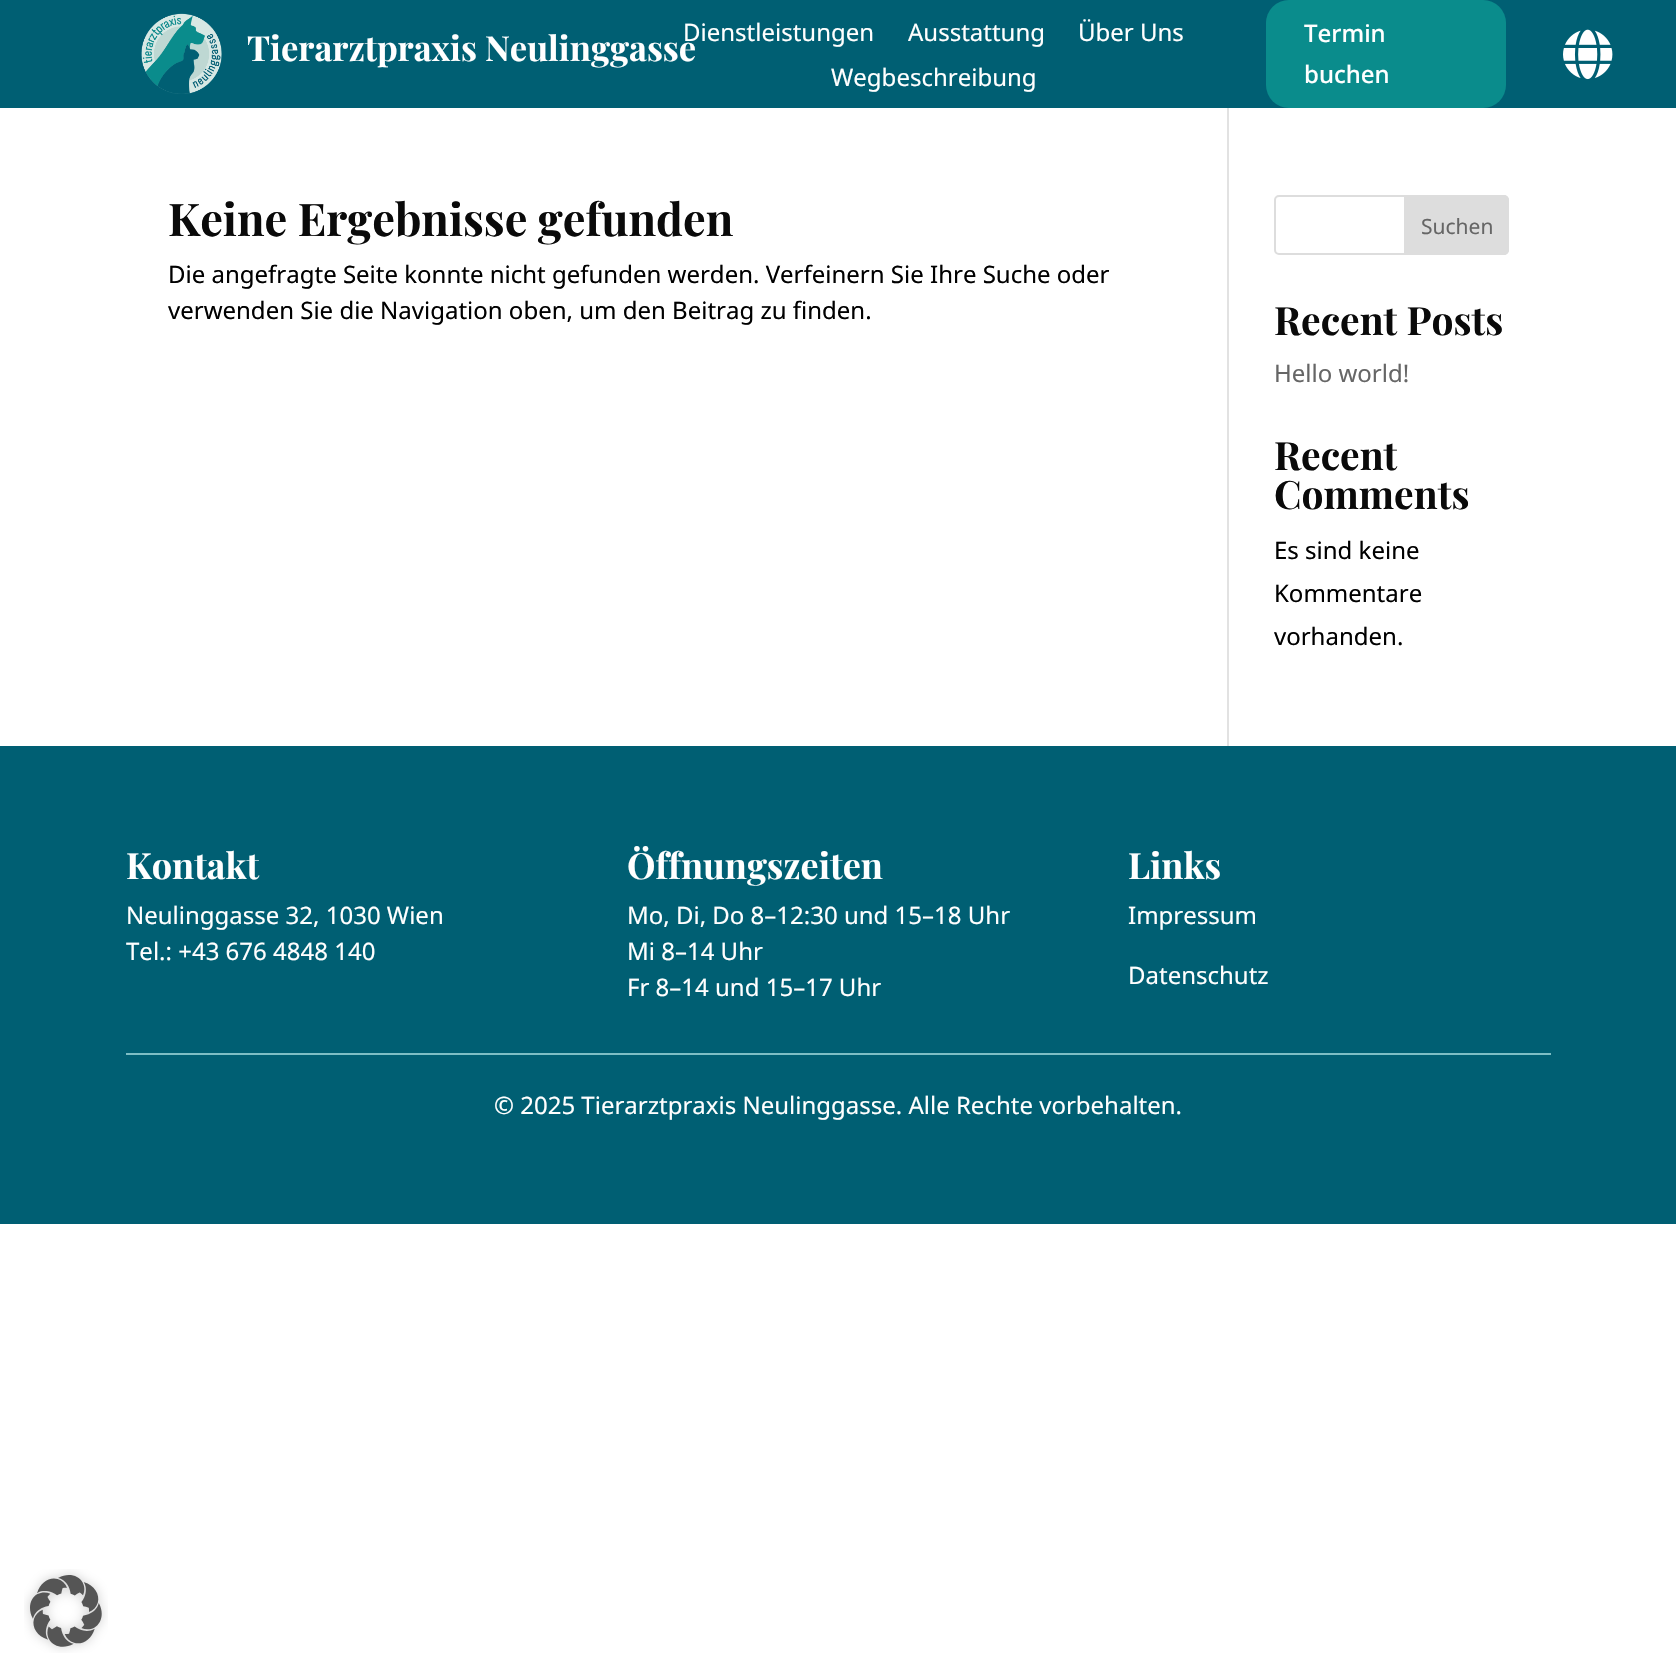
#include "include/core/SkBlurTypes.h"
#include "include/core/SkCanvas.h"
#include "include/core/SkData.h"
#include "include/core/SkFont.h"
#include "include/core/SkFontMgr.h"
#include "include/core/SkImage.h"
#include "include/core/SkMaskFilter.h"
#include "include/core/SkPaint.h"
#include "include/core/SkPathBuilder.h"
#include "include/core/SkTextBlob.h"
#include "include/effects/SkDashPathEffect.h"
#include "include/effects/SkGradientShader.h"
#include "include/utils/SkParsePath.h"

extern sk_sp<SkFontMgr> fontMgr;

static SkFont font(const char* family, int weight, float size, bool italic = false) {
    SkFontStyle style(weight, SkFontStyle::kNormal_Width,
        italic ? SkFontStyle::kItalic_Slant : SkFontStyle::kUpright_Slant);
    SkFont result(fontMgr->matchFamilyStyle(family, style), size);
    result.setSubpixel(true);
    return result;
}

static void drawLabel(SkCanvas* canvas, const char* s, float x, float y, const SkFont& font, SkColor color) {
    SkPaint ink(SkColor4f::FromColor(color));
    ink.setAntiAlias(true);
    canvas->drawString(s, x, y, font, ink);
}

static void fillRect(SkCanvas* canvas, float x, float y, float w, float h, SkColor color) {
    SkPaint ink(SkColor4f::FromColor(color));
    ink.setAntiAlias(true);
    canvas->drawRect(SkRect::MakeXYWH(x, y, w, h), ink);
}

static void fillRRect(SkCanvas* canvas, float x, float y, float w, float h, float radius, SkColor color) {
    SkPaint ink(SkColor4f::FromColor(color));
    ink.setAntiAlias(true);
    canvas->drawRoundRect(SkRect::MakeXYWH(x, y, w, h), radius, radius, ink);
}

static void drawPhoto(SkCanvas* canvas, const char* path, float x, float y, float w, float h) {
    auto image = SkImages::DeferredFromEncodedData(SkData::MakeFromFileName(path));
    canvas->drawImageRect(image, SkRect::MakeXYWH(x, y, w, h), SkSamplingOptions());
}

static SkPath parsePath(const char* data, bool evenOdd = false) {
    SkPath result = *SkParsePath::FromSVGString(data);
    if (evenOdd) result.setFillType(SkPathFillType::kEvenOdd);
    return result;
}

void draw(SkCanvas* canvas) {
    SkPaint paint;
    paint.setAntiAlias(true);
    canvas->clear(0xFFFFFFFF);
    fillRect(canvas, 0, 0, 1676, 108, 0xFF005F73);
    drawPhoto(canvas, "assets/img1.png", 141, 13, 81, 81);
    SkFont font1 = font("Playfair Display", 700, 34.5f);
    drawLabel(canvas, "Tierarztpraxis Neulinggasse", 247, 61, font1, 0xFFFFFFFF);
    SkFont font2 = font("Noto Sans", 400, 24);
    drawLabel(canvas, "Dienstleistungen", 683, 41, font2, 0xFFFFFFFF);
    drawLabel(canvas, "Ausstattung", 908, 41, font2, 0xFFFFFFFF);
    drawLabel(canvas, "Über Uns", 1078, 41, font2, 0xFFFFFFFF);
    drawLabel(canvas, "Wegbeschreibung", 831, 86, font2, 0xFFFFFFFF);
    fillRRect(canvas, 1266, 0, 240, 108, 23, 0xFF0A8C8C);
    SkFont font3 = font("Noto Sans", 500, 24);
    drawLabel(canvas, "Termin", 1304, 42, font3, 0xFFFFFFFF);
    drawLabel(canvas, "buchen", 1304, 83, font3, 0xFFFFFFFF);
    drawPhoto(canvas, "assets/img2.png", 1563, 29, 50, 51);
    fillRect(canvas, 1227, 108, 2, 638, 0xFFE2E2E2);
    SkFont font4 = font("Playfair Display", 700, 45);
    drawLabel(canvas, "Keine Ergebnisse gefunden", 168, 236, font4, 0xFF0A0A0A);
    drawLabel(canvas, "Die angefragte Seite konnte nicht gefunden werden. Verfeinern Sie Ihre Suche oder", 168, 283, font2, 0xFF000000);
    drawLabel(canvas, "verwenden Sie die Navigation oben, um den Beitrag zu finden.", 168, 319, font2, 0xFF000000);
    paint.setStroke(true);
    paint.setStrokeWidth(2);
    paint.setColor(0xFFDDDDDD);
    canvas->drawRoundRect(SkRect::MakeXYWH(1275, 196, 233, 58), 4, 4, paint);
    paint.setStroke(false);
    canvas->drawPath(parsePath("M1405 196H1504C1506 196 1508 198 1508 200V250C1508 252 1506 254 1504 254H1405Z"), paint);
    paint.setStroke(true);
    canvas->drawPath(parsePath("M1405 196H1504C1506 196 1508 198 1508 200V250C1508 252 1506 254 1504 254H1405Z"), paint);
    SkFont font5 = font("Noto Sans", 400, 21);
    drawLabel(canvas, "Suchen", 1421, 234, font5, 0xFF666666);
    SkFont font6 = font("Playfair Display", 700, 39);
    drawLabel(canvas, "Recent Posts", 1274, 335, font6, 0xFF0A0A0A);
    drawLabel(canvas, "Hello world!", 1274, 382, font2, 0xFF666666);
    drawLabel(canvas, "Recent", 1274, 470, font6, 0xFF0A0A0A);
    drawLabel(canvas, "Comments", 1274, 509, font6, 0xFF0A0A0A);
    drawLabel(canvas, "Es sind keine", 1274, 559, font2, 0xFF000000);
    drawLabel(canvas, "Kommentare", 1274, 602, font2, 0xFF000000);
    drawLabel(canvas, "vorhanden.", 1274, 645, font2, 0xFF000000);
    fillRect(canvas, 0, 746, 1676, 478, 0xFF005F73);
    SkFont font7 = font("Playfair Display", 700, 36);
    drawLabel(canvas, "Kontakt", 126, 879, font7, 0xFFFFFFFF);
    drawLabel(canvas, "Neulinggasse 32, 1030 Wien", 126, 924, font2, 0xFFFFFFFF);
    drawLabel(canvas, "Tel.: +43 676 4848 140", 126, 960, font2, 0xFFFFFFFF);
    drawLabel(canvas, "Öffnungszeiten", 627, 879, font7, 0xFFFFFFFF);
    drawLabel(canvas, "Mo, Di, Do 8–12:30 und 15–18 Uhr", 627, 924, font2, 0xFFFFFFFF);
    drawLabel(canvas, "Mi 8–14 Uhr", 627, 960, font2, 0xFFFFFFFF);
    drawLabel(canvas, "Fr 8–14 und 15–17 Uhr", 627, 996, font2, 0xFFFFFFFF);
    drawLabel(canvas, "Links", 1128, 879, font7, 0xFFFFFFFF);
    drawLabel(canvas, "Impressum", 1128, 924, font2, 0xFFFFFFFF);
    drawLabel(canvas, "Datenschutz", 1128, 984, font2, 0xFFFFFFFF);
    fillRect(canvas, 126, 1053, 1425, 2, 0xFF7EBEC5);
    drawLabel(canvas, "© 2025 Tierarztpraxis Neulinggasse. Alle Rechte vorbehalten.", 494, 1114, font2, 0xFFFFFFFF);
    drawPhoto(canvas, "assets/img3.png", 24, 1569, 84, 84);
}
